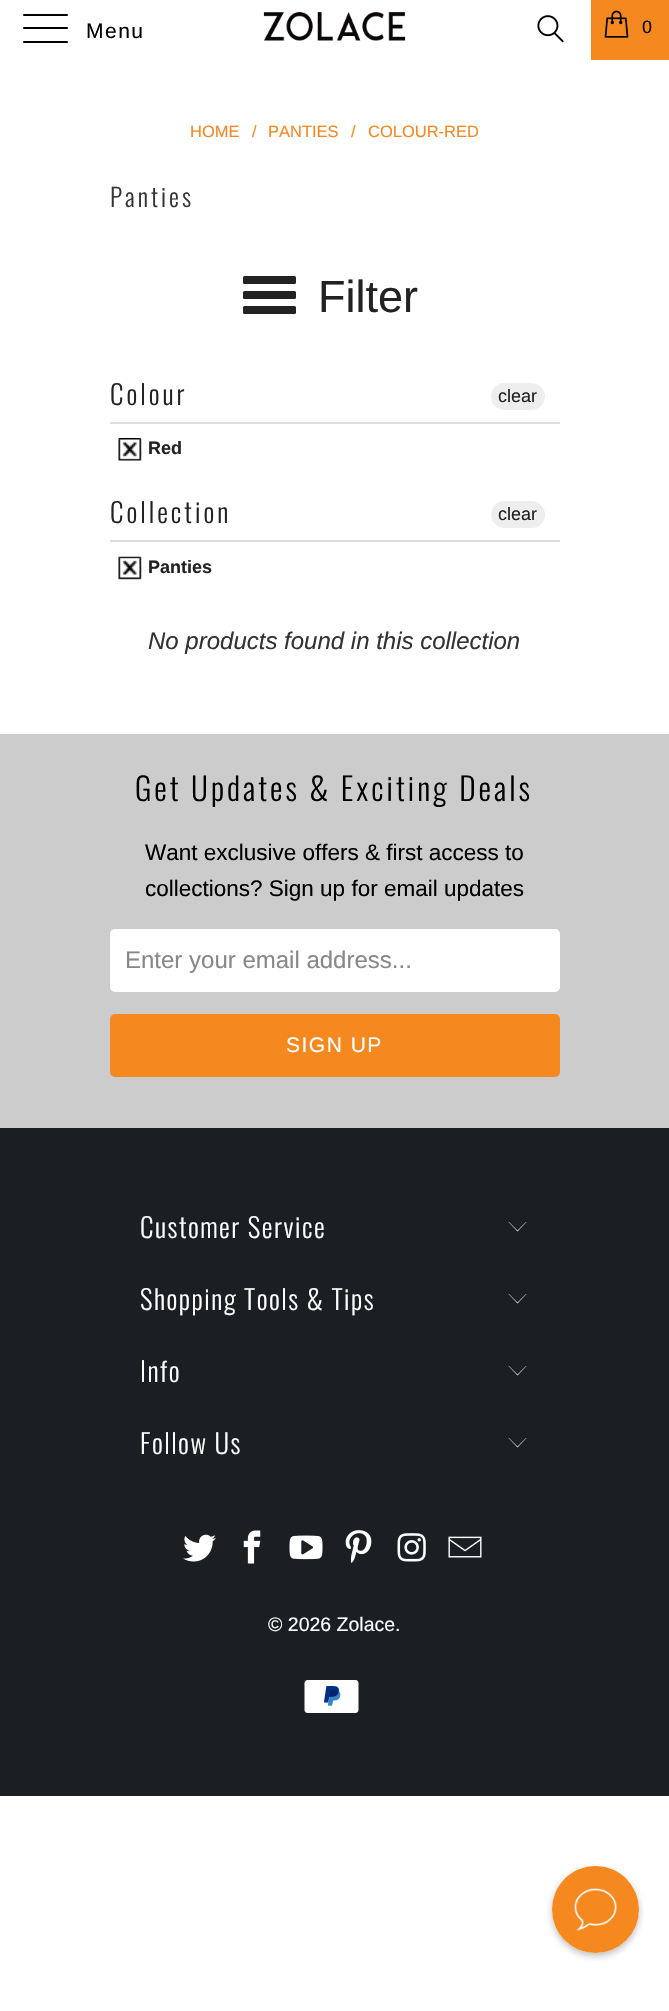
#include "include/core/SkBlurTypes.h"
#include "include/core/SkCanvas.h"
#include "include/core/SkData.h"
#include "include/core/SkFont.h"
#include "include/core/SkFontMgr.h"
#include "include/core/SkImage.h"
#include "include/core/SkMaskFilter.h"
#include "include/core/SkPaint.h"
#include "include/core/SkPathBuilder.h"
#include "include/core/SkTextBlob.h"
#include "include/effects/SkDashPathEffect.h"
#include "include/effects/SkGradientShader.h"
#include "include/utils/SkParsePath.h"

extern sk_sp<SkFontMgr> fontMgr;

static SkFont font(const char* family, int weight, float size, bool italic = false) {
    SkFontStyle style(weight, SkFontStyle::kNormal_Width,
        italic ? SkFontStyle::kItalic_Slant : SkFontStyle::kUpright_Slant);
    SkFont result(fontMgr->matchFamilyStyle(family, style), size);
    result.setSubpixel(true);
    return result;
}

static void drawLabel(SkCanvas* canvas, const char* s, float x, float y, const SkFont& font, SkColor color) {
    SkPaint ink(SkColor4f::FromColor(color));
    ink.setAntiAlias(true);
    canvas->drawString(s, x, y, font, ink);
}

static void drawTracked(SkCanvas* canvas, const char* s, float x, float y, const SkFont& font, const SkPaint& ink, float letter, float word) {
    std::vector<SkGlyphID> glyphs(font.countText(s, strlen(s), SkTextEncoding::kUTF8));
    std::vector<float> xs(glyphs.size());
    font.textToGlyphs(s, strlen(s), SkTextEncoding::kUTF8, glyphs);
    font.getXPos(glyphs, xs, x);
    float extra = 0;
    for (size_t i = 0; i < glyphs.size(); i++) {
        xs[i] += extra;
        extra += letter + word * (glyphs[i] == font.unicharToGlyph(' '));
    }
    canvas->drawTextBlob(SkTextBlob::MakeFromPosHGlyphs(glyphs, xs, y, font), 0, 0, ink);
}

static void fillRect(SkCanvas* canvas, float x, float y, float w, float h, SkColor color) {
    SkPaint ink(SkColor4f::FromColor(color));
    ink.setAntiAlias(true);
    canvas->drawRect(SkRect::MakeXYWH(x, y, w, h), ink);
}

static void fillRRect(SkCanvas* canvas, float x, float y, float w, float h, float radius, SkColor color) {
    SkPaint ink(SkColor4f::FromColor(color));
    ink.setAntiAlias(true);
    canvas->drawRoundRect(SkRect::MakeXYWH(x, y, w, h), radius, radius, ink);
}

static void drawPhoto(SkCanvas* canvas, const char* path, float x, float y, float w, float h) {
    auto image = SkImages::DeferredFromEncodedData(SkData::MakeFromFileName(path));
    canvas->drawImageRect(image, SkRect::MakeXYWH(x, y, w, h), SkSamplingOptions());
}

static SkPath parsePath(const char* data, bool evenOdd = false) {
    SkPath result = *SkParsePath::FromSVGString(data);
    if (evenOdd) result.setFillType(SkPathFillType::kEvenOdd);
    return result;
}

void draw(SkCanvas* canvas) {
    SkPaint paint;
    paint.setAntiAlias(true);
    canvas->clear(0xFFFFFFFF);
    fillRRect(canvas, 23, 14, 45, 2, 1, 0xFF000000);
    fillRRect(canvas, 23, 27, 45, 2, 1, 0xFF000000);
    fillRRect(canvas, 23, 41, 45, 2, 1, 0xFF000000);
    SkFont font1 = font("Liberation Sans", 400, 21);
    paint.setColor(0xFF000000);
    drawTracked(canvas, "Menu", 86, 38, font1, paint, 1.5f, 0);
    drawPhoto(canvas, "assets/img1.png", 263, 12, 143, 29);
    drawPhoto(canvas, "assets/img2.png", 537, 15, 27, 28);
    fillRect(canvas, 591, 0, 78, 60, 0xFFF68820);
    drawPhoto(canvas, "assets/img3.png", 604, 10, 25, 28);
    SkFont font2 = font("Liberation Sans", 400, 18);
    drawTracked(canvas, "0", 642, 33, font2, paint, 1.5f, 0);
    SkFont font3 = font("Liberation Sans", 400, 16.5f);
    drawLabel(canvas, "HOME", 190, 137, font3, 0xFFF68820);
    drawLabel(canvas, "/", 252, 137, font3, 0xFFF68820);
    drawLabel(canvas, "PANTIES", 268, 137, font3, 0xFFF68820);
    drawLabel(canvas, "/", 351, 137, font3, 0xFFF68820);
    drawLabel(canvas, "COLOUR-RED", 368, 137, font3, 0xFFF68820);
    SkFont font4 = font("Oswald", 300, 25);
    paint.setColor(0xFF333333);
    drawTracked(canvas, "Panties", 110, 207, font4, paint, 3, 0);
    fillRRect(canvas, 243, 291, 53, 8, 1.5f, 0xFF222222);
    fillRRect(canvas, 243, 276, 53, 8, 1.5f, 0xFF222222);
    fillRRect(canvas, 243, 306, 53, 8, 1.5f, 0xFF222222);
    SkFont font5 = font("Liberation Sans", 400, 45);
    drawLabel(canvas, "Filter", 318, 312, font5, 0xFF222222);
    fillRect(canvas, 110, 422, 450, 2, 0xFFDDDDDD);
    SkFont font6 = font("Oswald", 300, 27);
    paint.setColor(0xFF222222);
    drawTracked(canvas, "Colour", 110, 405, font6, paint, 3, 0);
    fillRRect(canvas, 491, 383, 54, 27, 13.5f, 0xFFEEEEEE);
    drawLabel(canvas, "clear", 498, 402, font2, 0xFF222222);
    drawPhoto(canvas, "assets/img4.png", 118, 438, 25, 23);
    SkFont font7 = font("Liberation Sans", 700, 18);
    drawLabel(canvas, "Red", 148, 454, font7, 0xFF222222);
    fillRect(canvas, 110, 540, 450, 2, 0xFFDDDDDD);
    drawTracked(canvas, "Collection", 110, 523, font6, paint, 3, 0);
    fillRRect(canvas, 491, 501, 54, 27, 13.5f, 0xFFEEEEEE);
    drawLabel(canvas, "clear", 498, 520, font2, 0xFF222222);
    drawPhoto(canvas, "assets/img5.png", 118, 556, 25, 24);
    drawLabel(canvas, "Panties", 148, 573, font7, 0xFF222222);
    SkFont font8 = font("Liberation Sans", 400, 24, true);
    drawLabel(canvas, "No products found in this collection", 148, 649, font8, 0xFF333333);
    fillRect(canvas, 0, 734, 669, 394, 0xFFCCCCCC);
    SkFont font9 = font("Oswald", 300, 31.5f);
    paint.setColor(0xFF000000);
    drawTracked(canvas, "Get Updates & Exciting Deals", 135, 801, font9, paint, 3, 0);
    SkFont font10 = font("Liberation Sans", 400, 22.5f);
    drawLabel(canvas, "Want exclusive offers & first access to", 145, 860, font10, 0xFF000000);
    drawLabel(canvas, "collections? Sign up for email updates", 145, 896, font10, 0xFF000000);
    fillRRect(canvas, 110, 929, 450, 63, 5, 0xFFFFFFFF);
    SkFont font11 = font("Liberation Sans", 400, 24);
    drawLabel(canvas, "Enter your email address...", 125, 968, font11, 0xFF888888);
    paint.setColor(0xFFF68820);
    canvas->drawRoundRect(SkRect::MakeXYWH(111, 1015, 448, 61), 4, 4, paint);
    paint.setStroke(true);
    paint.setStrokeWidth(2);
    canvas->drawRoundRect(SkRect::MakeXYWH(111, 1015, 448, 61), 4, 4, paint);
    paint.setStroke(false);
    paint.setColor(0xFFFFFFFF);
    drawTracked(canvas, "SIGN UP", 286, 1052, font1, paint, 1.5f, 0);
    fillRect(canvas, 0, 1128, 669, 668, 0xFF1B1F23);
    drawTracked(canvas, "Customer Service", 140, 1238, font6, paint, 1.5f, 0);
    canvas->drawPath(parsePath("M517.5 1231.5L508.5 1222H509L517.5 1230.5L526 1222H526.5Z"), paint);
    drawTracked(canvas, "Shopping Tools & Tips", 140, 1310, font6, paint, 1.5f, 0);
    canvas->drawPath(parsePath("M517.5 1303.5L508.5 1294H509L517.5 1302.5L526 1294H526.5Z"), paint);
    drawTracked(canvas, "Info", 140, 1382, font6, paint, 1.5f, 0);
    canvas->drawPath(parsePath("M517.5 1375.5L508.5 1366H509L517.5 1374.5L526 1366H526.5Z"), paint);
    drawTracked(canvas, "Follow Us", 140, 1454, font6, paint, 1.5f, 0);
    canvas->drawPath(parsePath("M517.5 1447.5L508.5 1438H509L517.5 1446.5L526 1438H526.5Z"), paint);
    drawPhoto(canvas, "assets/img6.png", 183, 1534, 33, 28);
    drawPhoto(canvas, "assets/img7.png", 243, 1530, 18, 34);
    drawPhoto(canvas, "assets/img8.png", 289, 1535, 34, 25);
    drawPhoto(canvas, "assets/img9.png", 345, 1530, 27, 33);
    drawPhoto(canvas, "assets/img10.png", 397, 1533, 29, 29);
    drawPhoto(canvas, "assets/img11.png", 448, 1536, 34, 22);
    SkFont font12 = font("Liberation Sans", 400, 19.5f);
    drawLabel(canvas, "© 2026 Zolace", 268, 1631, font12, 0xFFFFFFFF);
    drawLabel(canvas, ".", 395, 1631, font12, 0xFFFFFFFF);
    drawPhoto(canvas, "assets/img12.png", 304, 1680, 55, 33);
    drawPhoto(canvas, "assets/img13.png", 547, 1864, 97, 97);
}
